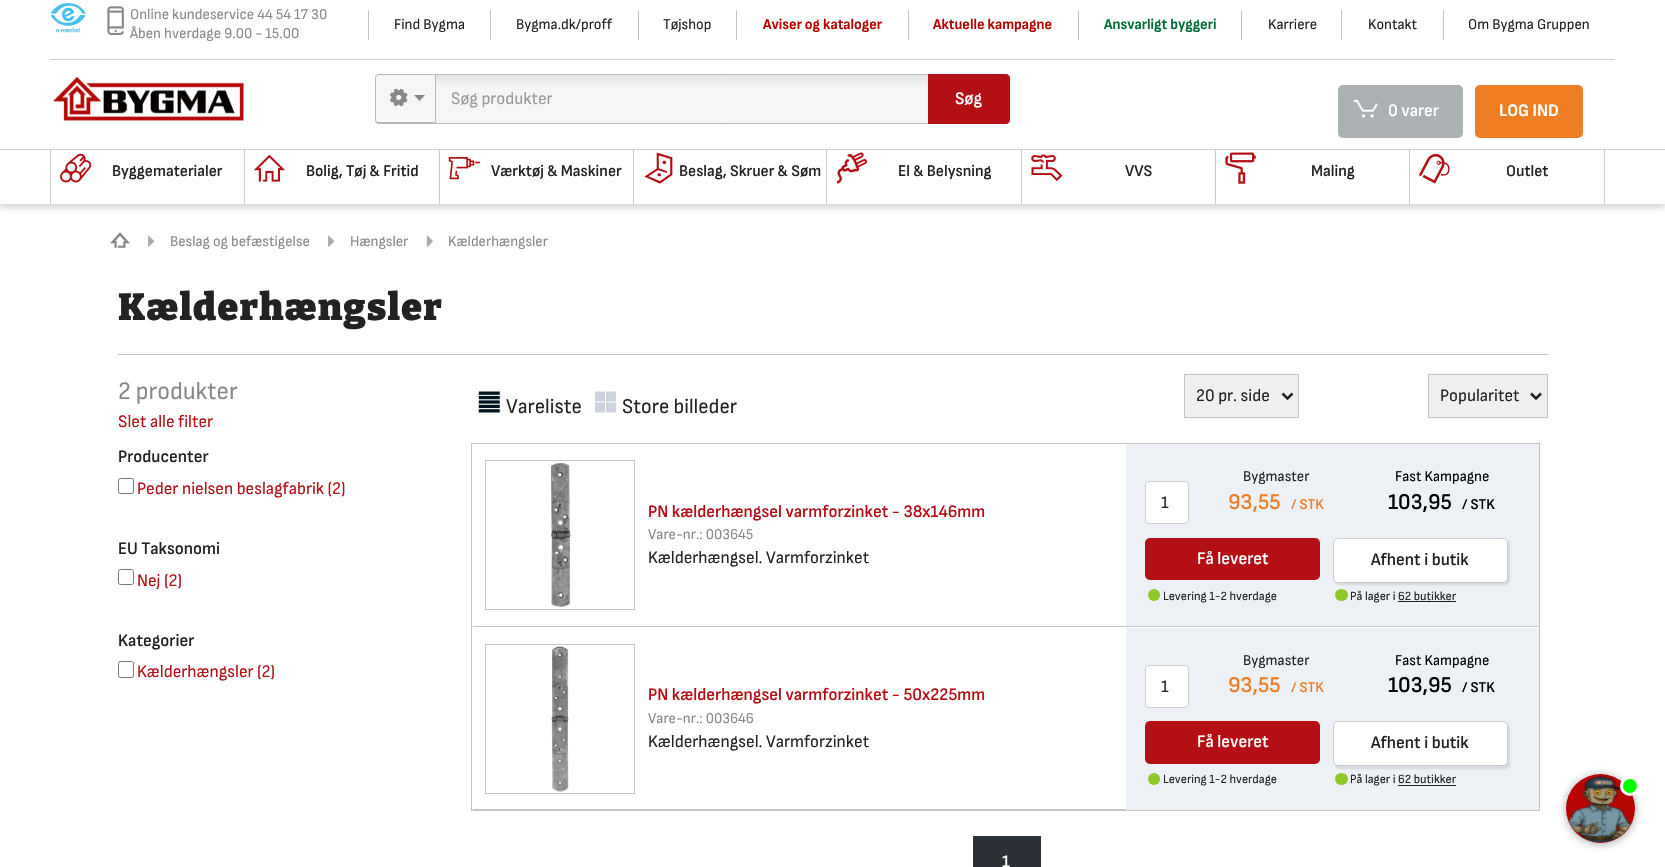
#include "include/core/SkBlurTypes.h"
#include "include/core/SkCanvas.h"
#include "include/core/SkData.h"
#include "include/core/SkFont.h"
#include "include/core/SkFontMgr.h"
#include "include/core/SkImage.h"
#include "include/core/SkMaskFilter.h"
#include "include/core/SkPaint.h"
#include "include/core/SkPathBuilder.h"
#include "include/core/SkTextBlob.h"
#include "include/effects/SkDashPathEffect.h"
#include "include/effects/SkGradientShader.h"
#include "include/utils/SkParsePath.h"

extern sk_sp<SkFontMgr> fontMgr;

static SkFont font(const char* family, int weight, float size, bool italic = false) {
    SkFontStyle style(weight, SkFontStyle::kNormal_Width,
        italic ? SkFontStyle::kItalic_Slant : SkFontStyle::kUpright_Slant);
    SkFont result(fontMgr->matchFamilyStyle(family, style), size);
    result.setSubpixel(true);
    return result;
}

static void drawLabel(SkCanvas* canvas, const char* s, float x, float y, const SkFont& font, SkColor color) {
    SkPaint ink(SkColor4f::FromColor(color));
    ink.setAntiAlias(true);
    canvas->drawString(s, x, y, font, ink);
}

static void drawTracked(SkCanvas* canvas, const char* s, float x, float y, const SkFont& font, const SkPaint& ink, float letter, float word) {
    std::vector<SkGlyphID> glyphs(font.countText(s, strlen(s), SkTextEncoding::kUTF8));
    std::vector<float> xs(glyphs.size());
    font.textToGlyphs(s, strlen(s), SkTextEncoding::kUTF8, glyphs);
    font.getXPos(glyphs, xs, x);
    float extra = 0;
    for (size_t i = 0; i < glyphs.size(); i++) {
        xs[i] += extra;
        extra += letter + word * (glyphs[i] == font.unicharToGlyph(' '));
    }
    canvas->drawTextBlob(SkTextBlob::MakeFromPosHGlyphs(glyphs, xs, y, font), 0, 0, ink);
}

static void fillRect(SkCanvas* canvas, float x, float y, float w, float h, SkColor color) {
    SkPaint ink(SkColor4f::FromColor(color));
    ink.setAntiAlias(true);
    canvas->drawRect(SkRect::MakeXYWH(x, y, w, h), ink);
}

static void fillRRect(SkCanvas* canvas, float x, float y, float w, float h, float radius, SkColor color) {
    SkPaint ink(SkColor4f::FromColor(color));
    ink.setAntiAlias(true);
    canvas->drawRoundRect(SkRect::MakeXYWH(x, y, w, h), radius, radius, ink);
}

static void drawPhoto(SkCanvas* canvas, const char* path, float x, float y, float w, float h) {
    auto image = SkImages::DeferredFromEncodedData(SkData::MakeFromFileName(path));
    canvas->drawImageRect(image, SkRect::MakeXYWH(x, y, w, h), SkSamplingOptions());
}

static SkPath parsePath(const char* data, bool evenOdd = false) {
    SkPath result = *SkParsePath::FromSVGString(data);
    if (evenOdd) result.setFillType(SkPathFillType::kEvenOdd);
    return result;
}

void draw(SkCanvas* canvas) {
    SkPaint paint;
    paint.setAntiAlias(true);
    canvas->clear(0xFFFFFFFF);
    paint.setColor(0x4D757575);
    paint.setMaskFilter(SkMaskFilter::MakeBlur(kNormal_SkBlurStyle, 3));
    canvas->drawRect(SkRect::MakeXYWH(0, 145, 1665, 63), paint);
    paint.setMaskFilter(nullptr);
    fillRect(canvas, 0, 140, 1665, 9, 0xFFFFFFFF);
    fillRect(canvas, 0, 149, 1665, 1, 0xFFCCCCCC);
    fillRect(canvas, 50, 59, 1565, 1, 0xFFCCCCCC);
    SkFont font1 = font("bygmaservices", 400, 45);
    drawLabel(canvas, "M", 50, 35, font1, 0xFF45C0EE);
    drawPhoto(canvas, "assets/img1.png", 107, 6, 17, 29);
    SkFont font2 = font("Sofia Sans Semi Condensed", 400, 15);
    drawLabel(canvas, "Online kundeservice 44 54 17 30", 130, 19, font2, 0xFF888888);
    drawLabel(canvas, "Åben hverdage 9.00 - 15.00", 130, 38, font2, 0xFF888888);
    fillRect(canvas, 368, 10, 1, 30, 0xFFC2C3C5);
    drawLabel(canvas, "Find Bygma", 394, 29, font2, 0xFF222222);
    fillRect(canvas, 490, 10, 1, 30, 0xFFC2C3C5);
    drawLabel(canvas, "Bygma.dk/proff", 516, 29, font2, 0xFF222222);
    fillRect(canvas, 638, 10, 1, 30, 0xFFC2C3C5);
    drawLabel(canvas, "Tøjshop", 663, 29, font2, 0xFF222222);
    fillRect(canvas, 736, 10, 1, 30, 0xFFC2C3C5);
    SkFont font3 = font("Sofia Sans Semi Condensed", 700, 15);
    drawLabel(canvas, "Aviser og kataloger", 763, 29, font3, 0xFFB70501);
    fillRect(canvas, 908, 10, 1, 30, 0xFFC2C3C5);
    drawLabel(canvas, "Aktuelle kampagne", 933, 29, font3, 0xFFB70501);
    fillRect(canvas, 1078, 10, 1, 30, 0xFFC2C3C5);
    drawLabel(canvas, "Ansvarligt byggeri", 1104, 29, font3, 0xFF006D39);
    fillRect(canvas, 1241, 10, 1, 30, 0xFFC2C3C5);
    drawLabel(canvas, "Karriere", 1268, 29, font2, 0xFF222222);
    fillRect(canvas, 1341, 10, 1, 30, 0xFFC2C3C5);
    drawLabel(canvas, "Kontakt", 1368, 29, font2, 0xFF222222);
    fillRect(canvas, 1443, 10, 1, 30, 0xFFC2C3C5);
    drawLabel(canvas, "Om Bygma Gruppen", 1468, 29, font2, 0xFF222222);
    drawPhoto(canvas, "assets/img2.png", 53, 76, 191, 45);
    paint.setColor(0xFFF4F6F8);
    canvas->drawPath(parsePath("M379 74H435V124H379C377 124 375 122 375 120V78C375 76 377 74 379 74Z"), paint);
    paint.setColor(0xFFB6BABB);
    canvas->drawPath(parsePath("M379 74H435V124H379C377 124 375 122 375 120V78C375 75 377 74 379 74ZM379 75H435V122H379C377 122 376 121 376 120V78C376 76 377 75 379 75Z", true), paint);
    drawPhoto(canvas, "assets/img3.png", 390, 88, 18, 19);
    paint.setColor(0xFF888888);
    canvas->drawPath(parsePath("M414 95H425L419.5 101Z"), paint);
    canvas->save();
    canvas->clipPath(parsePath("M435 74H1006C1008 74 1010 76 1010 78V120C1010 122 1008 124 1006 124H435Z"), true);
    {
        const SkColor colors[] = {0xFFE1E3E5, 0xFFF4F6F8};
        const float stops[] = {0, 0.25f};
        const SkPoint ends[] = {{723, 75}, {723, 123}};
        paint.setShader(SkGradientShader::MakeLinear(ends, colors, stops, 2, SkTileMode::kClamp));
        paint.setAlpha(255);
    }
    canvas->drawRect(SkRect::MakeXYWH(436, 75, 574, 48), paint);
    canvas->restore();
    paint.setStroke(true);
    paint.setStrokeWidth(1);
    paint.setShader(nullptr);
    paint.setColor(0xFFB6BABB);
    canvas->drawPath(parsePath("M435.5 74.5H1006C1008 74.5 1009.5 76 1009.5 78V120C1009.5 122 1008 123.5 1006 123.5H435.5Z"), paint);
    SkFont font4 = font("Sofia Sans Semi Condensed", 400, 17.5f);
    drawLabel(canvas, "Søg produkter", 451, 104, font4, 0xFF999999);
    paint.setStroke(false);
    paint.setColor(0xFFB40F14);
    canvas->drawPath(parsePath("M928 74H1006C1008 74 1010 76 1010 78V120C1010 122 1008 124 1006 124H928Z"), paint);
    SkFont font5 = font("Sofia Sans Semi Condensed", 600, 17.5f);
    drawLabel(canvas, "Søg", 955, 104, font5, 0xFFFFFFFF);
    fillRRect(canvas, 1338, 85, 125, 53, 5, 0xFFABB1B3);
    drawPhoto(canvas, "assets/img4.png", 1353, 99, 25, 19);
    drawLabel(canvas, "0 varer", 1388, 116, font5, 0xFFFFFFFF);
    fillRRect(canvas, 1475, 85, 108, 53, 5, 0xFFEE7D24);
    SkFont font6 = font("Sofia Sans Semi Condensed", 700, 17.5f);
    drawLabel(canvas, "LOG IND", 1499, 116, font6, 0xFFFFFFFF);
    fillRect(canvas, 0, 150, 1665, 54, 0xFFFFFFFF);
    fillRect(canvas, 244, 150, 1, 54, 0xFFCCCCCC);
    fillRect(canvas, 50, 150, 1, 54, 0xFFCCCCCC);
    drawPhoto(canvas, "assets/img5.png", 60, 153, 32, 30);
    SkFont font7 = font("Sofia Sans Semi Condensed", 600, 16.25f);
    drawLabel(canvas, "Byggematerialer", 112, 176, font7, 0xFF222222);
    fillRect(canvas, 439, 150, 1, 54, 0xFFCCCCCC);
    drawPhoto(canvas, "assets/img6.png", 253, 154, 32, 28);
    drawLabel(canvas, "Bolig, Tøj & Fritid", 306, 176, font7, 0xFF222222);
    fillRect(canvas, 633, 150, 1, 54, 0xFFCCCCCC);
    drawPhoto(canvas, "assets/img7.png", 448, 157, 32, 23);
    drawLabel(canvas, "Værktøj & Maskiner", 491, 176, font7, 0xFF222222);
    fillRect(canvas, 826, 150, 1, 54, 0xFFCCCCCC);
    drawPhoto(canvas, "assets/img8.png", 644, 152, 29, 32);
    drawLabel(canvas, "Beslag, Skruer & Søm", 679, 176, font7, 0xFF222222);
    fillRect(canvas, 1021, 150, 1, 54, 0xFFCCCCCC);
    drawPhoto(canvas, "assets/img9.png", 836, 152, 32, 32);
    drawLabel(canvas, "El & Belysning", 898, 176, font7, 0xFF222222);
    fillRect(canvas, 1215, 150, 1, 54, 0xFFCCCCCC);
    drawPhoto(canvas, "assets/img10.png", 1031, 154, 32, 27);
    drawLabel(canvas, "VVS", 1125, 176, font7, 0xFF222222);
    fillRect(canvas, 1409, 150, 1, 54, 0xFFCCCCCC);
    drawPhoto(canvas, "assets/img11.png", 1225, 152, 31, 32);
    drawLabel(canvas, "Maling", 1311, 176, font7, 0xFF222222);
    fillRect(canvas, 1604, 150, 1, 54, 0xFFCCCCCC);
    drawPhoto(canvas, "assets/img12.png", 1418, 153, 32, 31);
    drawLabel(canvas, "Outlet", 1506, 176, font7, 0xFF222222);
    drawPhoto(canvas, "assets/img13.png", 110, 232, 20, 16);
    drawPhoto(canvas, "assets/img14.png", 148, 235, 7, 12);
    drawLabel(canvas, "Beslag og befæstigelse", 170, 246, font2, 0xFF888888);
    drawPhoto(canvas, "assets/img14.png", 328, 235, 7, 12);
    drawLabel(canvas, "Hængsler", 350, 246, font2, 0xFF888888);
    drawPhoto(canvas, "assets/img15.png", 426, 235, 7, 12);
    drawLabel(canvas, "Kælderhængsler", 448, 246, font2, 0xFF888888);
    SkFont font8 = font("Bitter", 900, 37.5f);
    paint.setColor(0xFF222222);
    drawTracked(canvas, "Kælderhængsler", 118, 320, font8, paint, 1.25f, 0);
    fillRect(canvas, 118, 354, 1430, 1, 0xFFC2C3C5);
    SkFont font9 = font("Sofia Sans Semi Condensed", 400, 25);
    drawLabel(canvas, "2 produkter", 118, 399, font9, 0xFF888888);
    drawLabel(canvas, "Slet alle filter", 118, 427, font4, 0xFFB40F14);
    drawLabel(canvas, "Producenter", 118, 462, font5, 0xFF222222);
    paint.setStroke(true);
    paint.setColor(0xFF767676);
    canvas->drawRoundRect(SkRect::MakeXYWH(118.5f, 478.5f, 15, 15), 2, 2, paint);
    drawLabel(canvas, "Peder nielsen beslagfabrik (2)", 137, 494, font4, 0xFFB40F14);
    drawLabel(canvas, "EU Taksonomi", 118, 554, font5, 0xFF222222);
    canvas->drawRoundRect(SkRect::MakeXYWH(118.5f, 569.5f, 15, 15), 2, 2, paint);
    drawLabel(canvas, "Nej (2)", 137, 586, font4, 0xFFB40F14);
    drawLabel(canvas, "Kategorier", 118, 646, font5, 0xFF222222);
    canvas->drawRoundRect(SkRect::MakeXYWH(118.5f, 661.5f, 15, 16), 2, 2, paint);
    drawLabel(canvas, "Kælderhængsler (2)", 137, 677, font4, 0xFFB40F14);
    drawPhoto(canvas, "assets/img16.png", 478, 391, 22, 22);
    SkFont font10 = font("Sofia Sans Semi Condensed", 400, 21);
    drawLabel(canvas, "Vareliste", 506, 413, font10, 0xFF222222);
    drawPhoto(canvas, "assets/img17.png", 595, 391, 21, 22);
    drawLabel(canvas, "Store billeder", 622, 413, font10, 0xFF222222);
    paint.setStroke(false);
    paint.setColor(0xFFEFEFEF);
    canvas->drawRect(SkRect::MakeXYWH(1184.5f, 374.5f, 114, 43), paint);
    paint.setStroke(true);
    paint.setColor(0xFFC2C3C5);
    canvas->drawRect(SkRect::MakeXYWH(1184.5f, 374.5f, 114, 43), paint);
    paint.setStrokeWidth(2.5f);
    paint.setColor(0xFF222222);
    canvas->drawPath(parsePath("M1282.5 393.5L1287.5 398.5L1292.5 393.5"), paint);
    drawLabel(canvas, "20 pr. side", 1196, 401, font4, 0xFF222222);
    paint.setStroke(false);
    paint.setColor(0xFFEFEFEF);
    canvas->drawRect(SkRect::MakeXYWH(1428.5f, 374.5f, 119, 43), paint);
    paint.setStroke(true);
    paint.setStrokeWidth(1);
    paint.setColor(0xFFC2C3C5);
    canvas->drawRect(SkRect::MakeXYWH(1428.5f, 374.5f, 119, 43), paint);
    paint.setStrokeWidth(2.5f);
    paint.setColor(0xFF222222);
    canvas->drawPath(parsePath("M1531 393.5L1536 398.5L1541 393.5"), paint);
    drawLabel(canvas, "Popularitet", 1440, 401, font4, 0xFF222222);
    paint.setStrokeWidth(1);
    paint.setColor(0xFFC2C3C5);
    canvas->drawRect(SkRect::MakeXYWH(471.5f, 443.5f, 1068, 367), paint);
    fillRect(canvas, 473, 626, 1067, 1, 0xFFC2C3C5);
    canvas->drawRect(SkRect::MakeXYWH(485.5f, 460.5f, 149, 149), paint);
    drawPhoto(canvas, "assets/img18.png", 551, 463, 20, 144);
    drawLabel(canvas, "PN kælderhængsel varmforzinket - 38x146mm", 648, 517, font5, 0xFFB40F14);
    drawLabel(canvas, "Vare-nr.: 003645", 648, 539, font2, 0xFF888888);
    drawLabel(canvas, "Kælderhængsel. Varmforzinket", 648, 563, font4, 0xFF222222);
    fillRect(canvas, 1126, 444, 413, 182, 0xFFEDF1F5);
    paint.setStroke(false);
    paint.setColor(0xFFFFFFFF);
    canvas->drawRoundRect(SkRect::MakeXYWH(1145.5f, 481.5f, 43, 42), 3.5f, 3.5f, paint);
    paint.setStroke(true);
    paint.setColor(0xFFCCCCCC);
    canvas->drawRoundRect(SkRect::MakeXYWH(1145.5f, 481.5f, 43, 42), 3.5f, 3.5f, paint);
    drawLabel(canvas, "1", 1161, 508, font4, 0xFF222222);
    drawLabel(canvas, "Bygmaster", 1243, 481, font2, 0xFF222222);
    SkFont font11 = font("Sofia Sans Semi Condensed", 600, 22.5f);
    drawLabel(canvas, "93,55", 1228, 509, font11, 0xFFEE7D24);
    SkFont font12 = font("Sofia Sans Semi Condensed", 600, 15);
    drawLabel(canvas, "/ STK", 1291, 509, font12, 0xFFEE7D24);
    drawLabel(canvas, "Fast Kampagne", 1395, 481, font2, 0xFF000000);
    drawLabel(canvas, "103,95", 1388, 509, font11, 0xFF000000);
    drawLabel(canvas, "/ STK", 1462, 509, font12, 0xFF000000);
    fillRRect(canvas, 1145, 538, 175, 42, 5, 0xFFB40F14);
    drawLabel(canvas, "Få leveret", 1197, 564, font5, 0xFFFFFFFF);
    paint.setStroke(false);
    paint.setColor(0x1A000000);
    paint.setMaskFilter(SkMaskFilter::MakeBlur(kNormal_SkBlurStyle, 1));
    canvas->drawRoundRect(SkRect::MakeXYWH(1335, 540, 175, 45), 5, 5, paint);
    paint.setMaskFilter(nullptr);
    paint.setColor(0xFFFFFFFF);
    canvas->drawRoundRect(SkRect::MakeXYWH(1333.5f, 538.5f, 174, 44), 4.5f, 4.5f, paint);
    paint.setStroke(true);
    paint.setColor(0xFFCCCCCC);
    canvas->drawRoundRect(SkRect::MakeXYWH(1333.5f, 538.5f, 174, 44), 4.5f, 4.5f, paint);
    drawLabel(canvas, "Afhent i butik", 1371, 565, font5, 0xFF222222);
    paint.setStroke(false);
    paint.setColor(0xFF8CC828);
    canvas->drawCircle(1154, 595, 6, paint);
    SkFont font13 = font("Sofia Sans Semi Condensed", 400, 12.5f);
    drawLabel(canvas, "Levering 1-2 hverdage", 1163, 600, font13, 0xFF222222);
    fillRRect(canvas, 1335, 589, 13, 12, 6, 0xFF8CC828);
    drawLabel(canvas, "På lager i 62 butikker", 1350, 600, font13, 0xFF222222);
    fillRect(canvas, 1398, 601, 58, 1, 0xFF222222);
    fillRect(canvas, 473, 809, 1067, 1, 0xFFC2C3C5);
    paint.setStroke(true);
    paint.setColor(0xFFC2C3C5);
    canvas->drawRect(SkRect::MakeXYWH(485.5f, 644.5f, 149, 149), paint);
    drawPhoto(canvas, "assets/img19.png", 551, 646, 18, 146);
    drawLabel(canvas, "PN kælderhængsel varmforzinket - 50x225mm", 648, 700, font5, 0xFFB40F14);
    drawLabel(canvas, "Vare-nr.: 003646", 648, 723, font2, 0xFF888888);
    drawLabel(canvas, "Kælderhængsel. Varmforzinket", 648, 747, font4, 0xFF222222);
    fillRect(canvas, 1126, 628, 413, 182, 0xFFEDF1F5);
    paint.setStroke(false);
    paint.setColor(0xFFFFFFFF);
    canvas->drawRoundRect(SkRect::MakeXYWH(1145.5f, 665.5f, 43, 42), 3.5f, 3.5f, paint);
    paint.setStroke(true);
    paint.setColor(0xFFCCCCCC);
    canvas->drawRoundRect(SkRect::MakeXYWH(1145.5f, 665.5f, 43, 42), 3.5f, 3.5f, paint);
    drawLabel(canvas, "1", 1161, 692, font4, 0xFF222222);
    drawLabel(canvas, "Bygmaster", 1243, 665, font2, 0xFF222222);
    drawLabel(canvas, "93,55", 1228, 692, font11, 0xFFEE7D24);
    drawLabel(canvas, "/ STK", 1291, 692, font12, 0xFFEE7D24);
    drawLabel(canvas, "Fast Kampagne", 1395, 665, font2, 0xFF000000);
    drawLabel(canvas, "103,95", 1388, 692, font11, 0xFF000000);
    drawLabel(canvas, "/ STK", 1462, 692, font12, 0xFF000000);
    fillRRect(canvas, 1145, 721, 175, 43, 5, 0xFFB40F14);
    drawLabel(canvas, "Få leveret", 1197, 747, font5, 0xFFFFFFFF);
    paint.setStroke(false);
    paint.setColor(0x1A000000);
    paint.setMaskFilter(SkMaskFilter::MakeBlur(kNormal_SkBlurStyle, 1));
    canvas->drawRoundRect(SkRect::MakeXYWH(1335, 724, 175, 45), 5, 5, paint);
    paint.setMaskFilter(nullptr);
    paint.setColor(0xFFFFFFFF);
    canvas->drawRoundRect(SkRect::MakeXYWH(1333.5f, 721.5f, 174, 44), 4.5f, 4.5f, paint);
    paint.setStroke(true);
    paint.setColor(0xFFCCCCCC);
    canvas->drawRoundRect(SkRect::MakeXYWH(1333.5f, 721.5f, 174, 44), 4.5f, 4.5f, paint);
    drawLabel(canvas, "Afhent i butik", 1371, 748, font5, 0xFF222222);
    paint.setStroke(false);
    paint.setColor(0xFF8CC828);
    canvas->drawCircle(1154, 779, 6, paint);
    drawLabel(canvas, "Levering 1-2 hverdage", 1163, 783, font13, 0xFF222222);
    fillRRect(canvas, 1335, 773, 13, 12, 6, 0xFF8CC828);
    drawLabel(canvas, "På lager i 62 butikker", 1350, 783, font13, 0xFF222222);
    fillRect(canvas, 1398, 785, 58, 1, 0xFF222222);
    fillRect(canvas, 973, 836, 68, 31, 0xFF2B3137);
    drawLabel(canvas, "1", 1002, 867, font5, 0xFFFFFFFF);
    paint.setColor(0x59000000);
    paint.setMaskFilter(SkMaskFilter::MakeBlur(kNormal_SkBlurStyle, 4.5f));
    canvas->drawRoundRect(SkRect::MakeXYWH(1566, 775, 69, 69), 34.5f, 34.5f, paint);
    paint.setMaskFilter(nullptr);
    paint.setColor(0xFFB70501);
    canvas->drawCircle(1600.5f, 808.5f, 34.5f, paint);
    drawPhoto(canvas, "assets/img20.png", 1568, 775, 63, 68);
    paint.setColor(0xFF00FF00);
    canvas->drawCircle(1630, 786, 8.5f, paint);
    paint.setStroke(true);
    paint.setStrokeWidth(3);
    paint.setColor(0xFFFFFFFF);
    canvas->drawCircle(1630, 786, 8.5f, paint);
}
